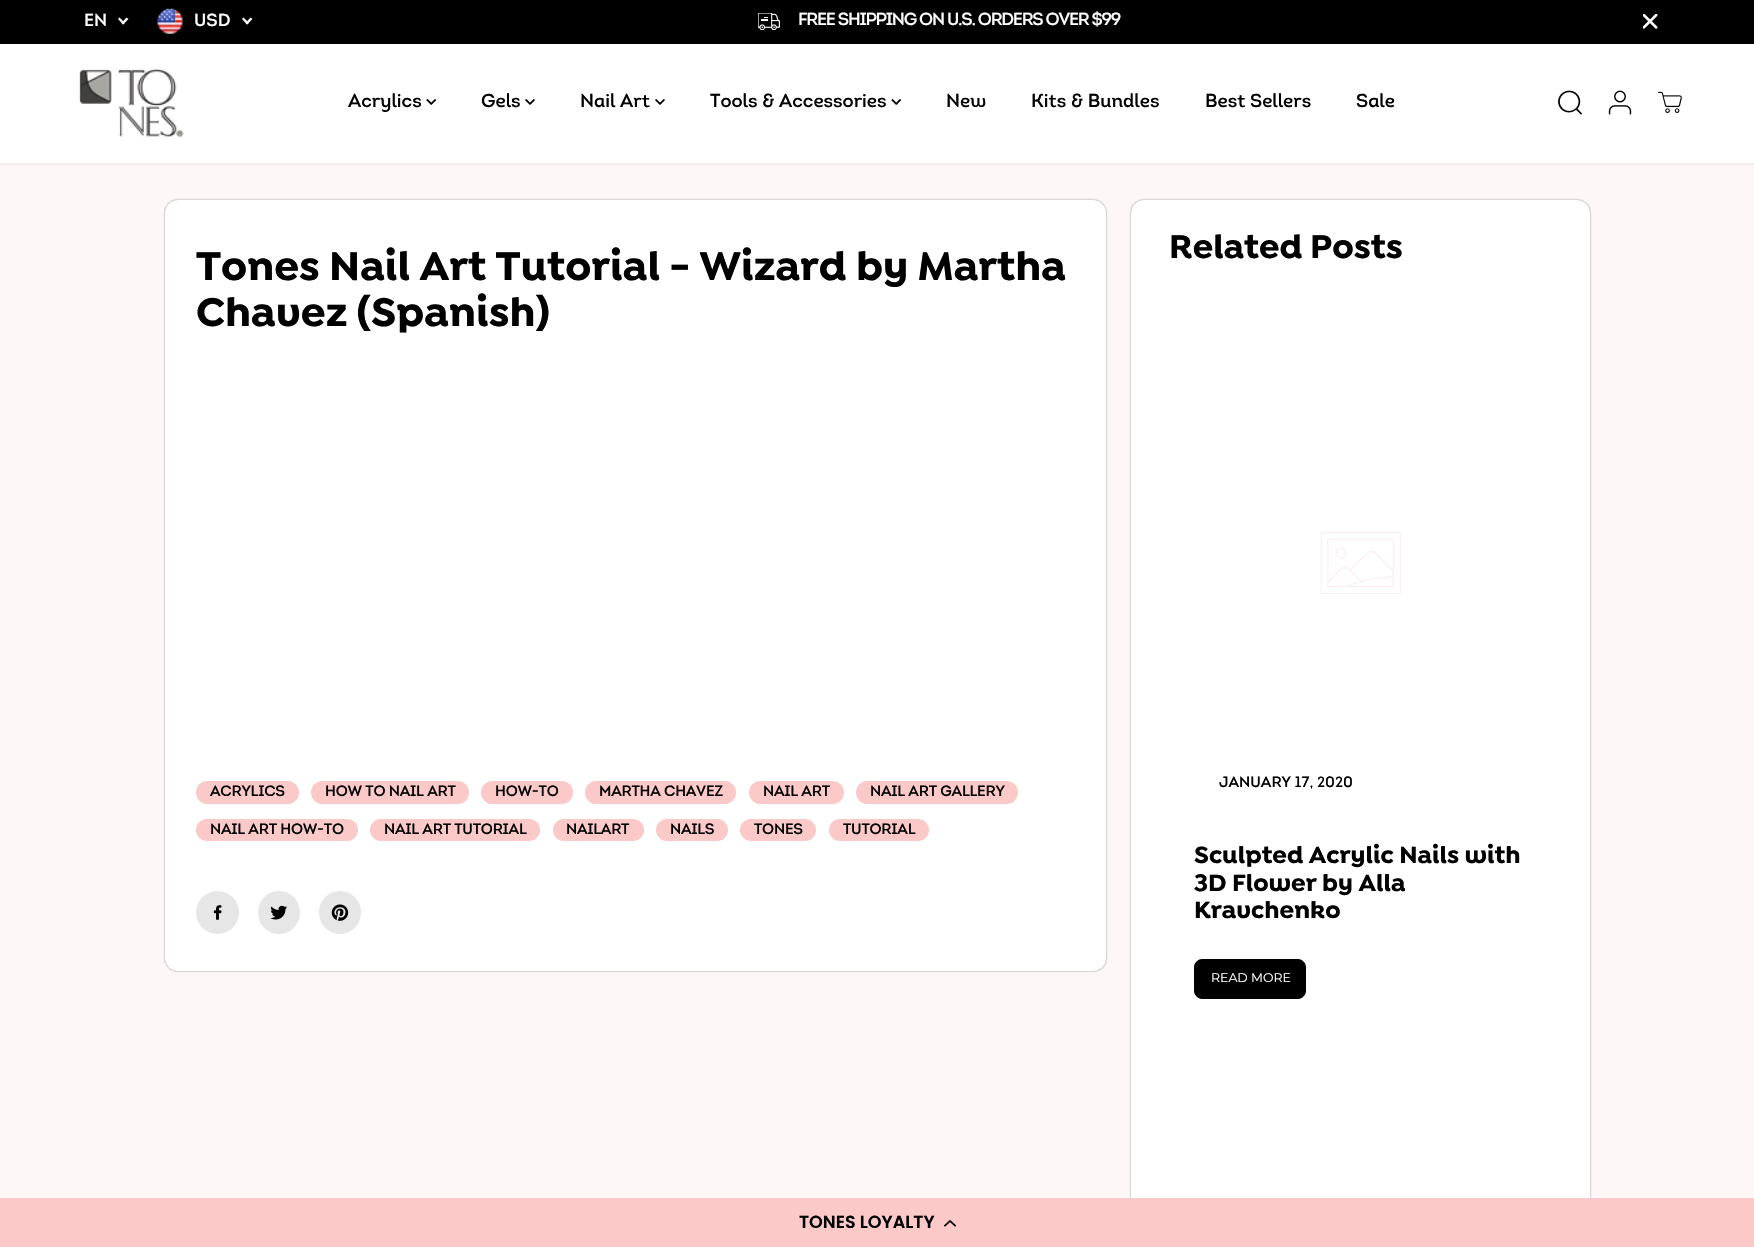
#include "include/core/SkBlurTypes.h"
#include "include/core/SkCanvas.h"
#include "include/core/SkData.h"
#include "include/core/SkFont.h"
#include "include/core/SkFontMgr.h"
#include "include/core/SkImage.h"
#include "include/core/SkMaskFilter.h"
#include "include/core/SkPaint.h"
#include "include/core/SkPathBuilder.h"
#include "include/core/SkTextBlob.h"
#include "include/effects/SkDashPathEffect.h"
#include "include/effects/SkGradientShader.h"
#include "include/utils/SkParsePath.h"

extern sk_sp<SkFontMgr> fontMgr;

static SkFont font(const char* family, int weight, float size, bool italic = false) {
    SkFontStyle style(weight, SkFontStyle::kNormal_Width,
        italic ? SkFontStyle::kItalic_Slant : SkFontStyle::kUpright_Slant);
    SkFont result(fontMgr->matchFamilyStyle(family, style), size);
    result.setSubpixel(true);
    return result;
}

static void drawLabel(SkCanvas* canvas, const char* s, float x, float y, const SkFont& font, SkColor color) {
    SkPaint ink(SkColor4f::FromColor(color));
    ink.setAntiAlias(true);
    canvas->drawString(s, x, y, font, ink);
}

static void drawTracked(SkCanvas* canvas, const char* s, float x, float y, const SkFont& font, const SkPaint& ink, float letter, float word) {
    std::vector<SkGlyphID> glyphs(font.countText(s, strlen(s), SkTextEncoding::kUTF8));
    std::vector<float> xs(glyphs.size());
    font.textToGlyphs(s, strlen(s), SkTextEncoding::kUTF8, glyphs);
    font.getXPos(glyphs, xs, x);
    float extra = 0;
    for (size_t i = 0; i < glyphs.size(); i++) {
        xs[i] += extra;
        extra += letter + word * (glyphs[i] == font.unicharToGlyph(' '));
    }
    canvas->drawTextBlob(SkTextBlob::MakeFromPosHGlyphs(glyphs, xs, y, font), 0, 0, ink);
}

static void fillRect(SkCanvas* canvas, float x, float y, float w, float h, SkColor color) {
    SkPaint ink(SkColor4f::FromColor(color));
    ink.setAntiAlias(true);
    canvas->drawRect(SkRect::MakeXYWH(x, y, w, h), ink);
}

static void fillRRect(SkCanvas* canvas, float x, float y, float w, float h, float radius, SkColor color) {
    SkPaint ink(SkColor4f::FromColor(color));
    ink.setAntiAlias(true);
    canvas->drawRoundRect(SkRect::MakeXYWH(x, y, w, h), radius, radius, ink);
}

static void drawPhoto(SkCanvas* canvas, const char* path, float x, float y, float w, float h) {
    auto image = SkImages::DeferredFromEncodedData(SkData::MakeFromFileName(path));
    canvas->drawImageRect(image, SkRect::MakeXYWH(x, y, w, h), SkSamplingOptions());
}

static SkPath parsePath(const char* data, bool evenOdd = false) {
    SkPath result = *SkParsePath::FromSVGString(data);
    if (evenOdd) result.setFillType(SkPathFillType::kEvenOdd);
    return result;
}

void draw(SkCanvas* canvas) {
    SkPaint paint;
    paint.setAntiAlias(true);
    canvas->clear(0xFFFFFFFF);
    fillRect(canvas, 0, 163, 1754, 1035, 0xFFFDF7F7);
    canvas->save();
    canvas->clipPath(parsePath("M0 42H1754V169H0ZM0 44H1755V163H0Z", true), true);
    paint.setColor(0x0D000000);
    paint.setMaskFilter(SkMaskFilter::MakeBlur(kNormal_SkBlurStyle, 1));
    canvas->drawRect(SkRect::MakeXYWH(0, 46, 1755, 119), paint);
    paint.setMaskFilter(nullptr);
    canvas->restore();
    fillRect(canvas, 0, 0, 1754, 44, 0xFF000000);
    SkFont font1 = font("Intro", 400, 17.5f);
    drawLabel(canvas, "EN", 84, 26, font1, 0xFFFFFFFF);
    paint.setColor(0xFFFFFFFF);
    canvas->drawPath(parsePath("M126.5 17.5L128.5 19L123 24.5L121.5 23Z"), paint);
    canvas->drawPath(parsePath("M119.5 17.5L125 23L123 24.5L118 19Z"), paint);
    drawPhoto(canvas, "assets/img1.png", 157, 8, 26, 26);
    drawLabel(canvas, "USD", 194, 26, font1, 0xFFFFFFFF);
    canvas->drawPath(parsePath("M250.5 17.5L252.5 19L247 24.5L245.5 23Z"), paint);
    canvas->drawPath(parsePath("M243.5 17.5L249 23L247 24.5L242 19Z"), paint);
    drawPhoto(canvas, "assets/img2.png", 758, 13, 22, 17);
    drawTracked(canvas, "FREE SHIPPING ON U.S. ORDERS OVER $99", 798, 25, font1, paint, -1.25f, 0);
    drawPhoto(canvas, "assets/img3.png", 1643, 14, 15, 15);
    drawPhoto(canvas, "assets/img4.png", 79, 68, 105, 70);
    SkFont font2 = font("Intro", 400, 18.75f);
    drawLabel(canvas, "Acrylics", 348, 107, font2, 0xFF000000);
    drawPhoto(canvas, "assets/img5.png", 426, 99, 10, 6);
    drawLabel(canvas, "Gels", 481, 107, font2, 0xFF000000);
    drawPhoto(canvas, "assets/img6.png", 525, 99, 10, 6);
    drawLabel(canvas, "Nail Art", 580, 107, font2, 0xFF000000);
    drawPhoto(canvas, "assets/img6.png", 655, 99, 10, 6);
    drawLabel(canvas, "Tools & Accessories", 710, 107, font2, 0xFF000000);
    drawPhoto(canvas, "assets/img5.png", 891, 99, 10, 6);
    drawLabel(canvas, "New", 946, 107, font2, 0xFF000000);
    drawLabel(canvas, "Kits & Bundles", 1031, 107, font2, 0xFF000000);
    drawLabel(canvas, "Best Sellers", 1205, 107, font2, 0xFF000000);
    drawLabel(canvas, "Sale", 1356, 107, font2, 0xFF000000);
    drawPhoto(canvas, "assets/img7.png", 1558, 90, 24, 25);
    drawPhoto(canvas, "assets/img8.png", 1608, 90, 24, 25);
    drawPhoto(canvas, "assets/img9.png", 1658, 91, 24, 22);
    paint.setColor(0x80000000);
    paint.setMaskFilter(SkMaskFilter::MakeBlur(kNormal_SkBlurStyle, 1));
    canvas->drawRoundRect(SkRect::MakeXYWH(165, 200, 941, 771), 13, 13, paint);
    paint.setMaskFilter(nullptr);
    fillRRect(canvas, 165, 200, 941, 771, 13, 0xFFFFFFFF);
    SkFont font3 = font("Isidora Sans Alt", 700, 42.5f);
    drawLabel(canvas, "Tones Nail Art Tutorial - Wizard by Martha", 196, 280, font3, 0xFF000000);
    drawLabel(canvas, "Chavez (Spanish)", 196, 326, font3, 0xFF000000);
    fillRRect(canvas, 196, 781, 103, 23, 11.5f, 0xFFFCC9C9);
    SkFont font4 = font("Intro", 400, 15);
    paint.setColor(0xFF000000);
    drawTracked(canvas, "ACRYLICS", 210, 796, font4, paint, -0.25f, 0);
    fillRRect(canvas, 311, 781, 158, 23, 11.5f, 0xFFFCC9C9);
    drawTracked(canvas, "HOW TO NAIL ART", 325, 796, font4, paint, -0.25f, 0);
    fillRRect(canvas, 481, 781, 92, 23, 11.5f, 0xFFFCC9C9);
    drawTracked(canvas, "HOW-TO", 495, 796, font4, paint, -0.25f, 0);
    fillRRect(canvas, 585, 781, 151, 23, 11.5f, 0xFFFCC9C9);
    drawTracked(canvas, "MARTHA CHAVEZ", 599, 796, font4, paint, -0.25f, 0);
    fillRRect(canvas, 749, 781, 95, 23, 11.5f, 0xFFFCC9C9);
    drawTracked(canvas, "NAIL ART", 763, 796, font4, paint, -0.25f, 0);
    fillRRect(canvas, 856, 781, 162, 23, 11.5f, 0xFFFCC9C9);
    drawTracked(canvas, "NAIL ART GALLERY", 870, 796, font4, paint, -0.25f, 0);
    fillRRect(canvas, 196, 819, 162, 22, 11, 0xFFFCC9C9);
    drawTracked(canvas, "NAIL ART HOW-TO", 210, 834, font4, paint, -0.25f, 0);
    fillRRect(canvas, 370, 819, 170, 22, 11, 0xFFFCC9C9);
    drawTracked(canvas, "NAIL ART TUTORIAL", 384, 834, font4, paint, -0.25f, 0);
    fillRRect(canvas, 553, 819, 91, 22, 11, 0xFFFCC9C9);
    drawTracked(canvas, "NAILART", 566, 834, font4, paint, -0.25f, 0);
    fillRRect(canvas, 656, 819, 72, 22, 11, 0xFFFCC9C9);
    drawTracked(canvas, "NAILS", 670, 834, font4, paint, -0.25f, 0);
    fillRRect(canvas, 740, 819, 76, 22, 11, 0xFFFCC9C9);
    drawTracked(canvas, "TONES", 754, 834, font4, paint, -0.25f, 0);
    fillRRect(canvas, 829, 819, 100, 22, 11, 0xFFFCC9C9);
    drawTracked(canvas, "TUTORIAL", 843, 834, font4, paint, -0.25f, 0);
    paint.setColor(0xFFE6E6E6);
    canvas->drawCircle(217.5f, 912.5f, 21.5f, paint);
    drawPhoto(canvas, "assets/img10.png", 213, 905, 9, 15);
    fillRRect(canvas, 258, 891, 42, 43, 21, 0xFFE6E6E6);
    drawPhoto(canvas, "assets/img11.png", 270, 905, 17, 15);
    fillRRect(canvas, 319, 891, 42, 43, 21, 0xFFE6E6E6);
    drawPhoto(canvas, "assets/img12.png", 331, 904, 18, 17);
    paint.setColor(0x80000000);
    paint.setMaskFilter(SkMaskFilter::MakeBlur(kNormal_SkBlurStyle, 1));
    canvas->drawRoundRect(SkRect::MakeXYWH(1131, 200, 459, 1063), 13, 13, paint);
    paint.setMaskFilter(nullptr);
    fillRRect(canvas, 1131, 200, 459, 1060, 13, 0xFFFFFFFF);
    SkFont font5 = font("Isidora Sans Alt", 700, 35);
    drawLabel(canvas, "Related Posts", 1169, 258, font5, 0xFF000000);
    drawPhoto(canvas, "assets/img13.png", 1320, 532, 82, 62);
    drawLabel(canvas, "JANUARY 17, 2020", 1219, 787, font4, 0xFF000000);
    SkFont font6 = font("Isidora Sans Alt", 700, 25);
    drawLabel(canvas, "Sculpted Acrylic Nails with", 1194, 863, font6, 0xFF000000);
    drawLabel(canvas, "3D Flower by Alla", 1194, 891, font6, 0xFF000000);
    drawLabel(canvas, "Kravchenko", 1194, 918, font6, 0xFF000000);
    paint.setColor(0xFF000000);
    canvas->drawRoundRect(SkRect::MakeXYWH(1194.5f, 959.5f, 111, 39), 7.5f, 7.5f, paint);
    paint.setStroke(true);
    paint.setStrokeWidth(1);
    canvas->drawRoundRect(SkRect::MakeXYWH(1194.5f, 959.5f, 111, 39), 7.5f, 7.5f, paint);
    SkFont font7 = font("Montserrat", 100, 12.5f);
    drawLabel(canvas, "READ MORE", 1211, 982, font7, 0xFFFFFFFF);
    fillRect(canvas, 0, 1198, 1754, 49, 0xFFFCC9C9);
    SkFont font8 = font("Poppins", 600, 17.5f);
    drawLabel(canvas, "TONES LOYALTY", 799, 1228, font8, 0xFF000000);
    drawPhoto(canvas, "assets/img14.png", 944, 1219, 12, 8);
}
